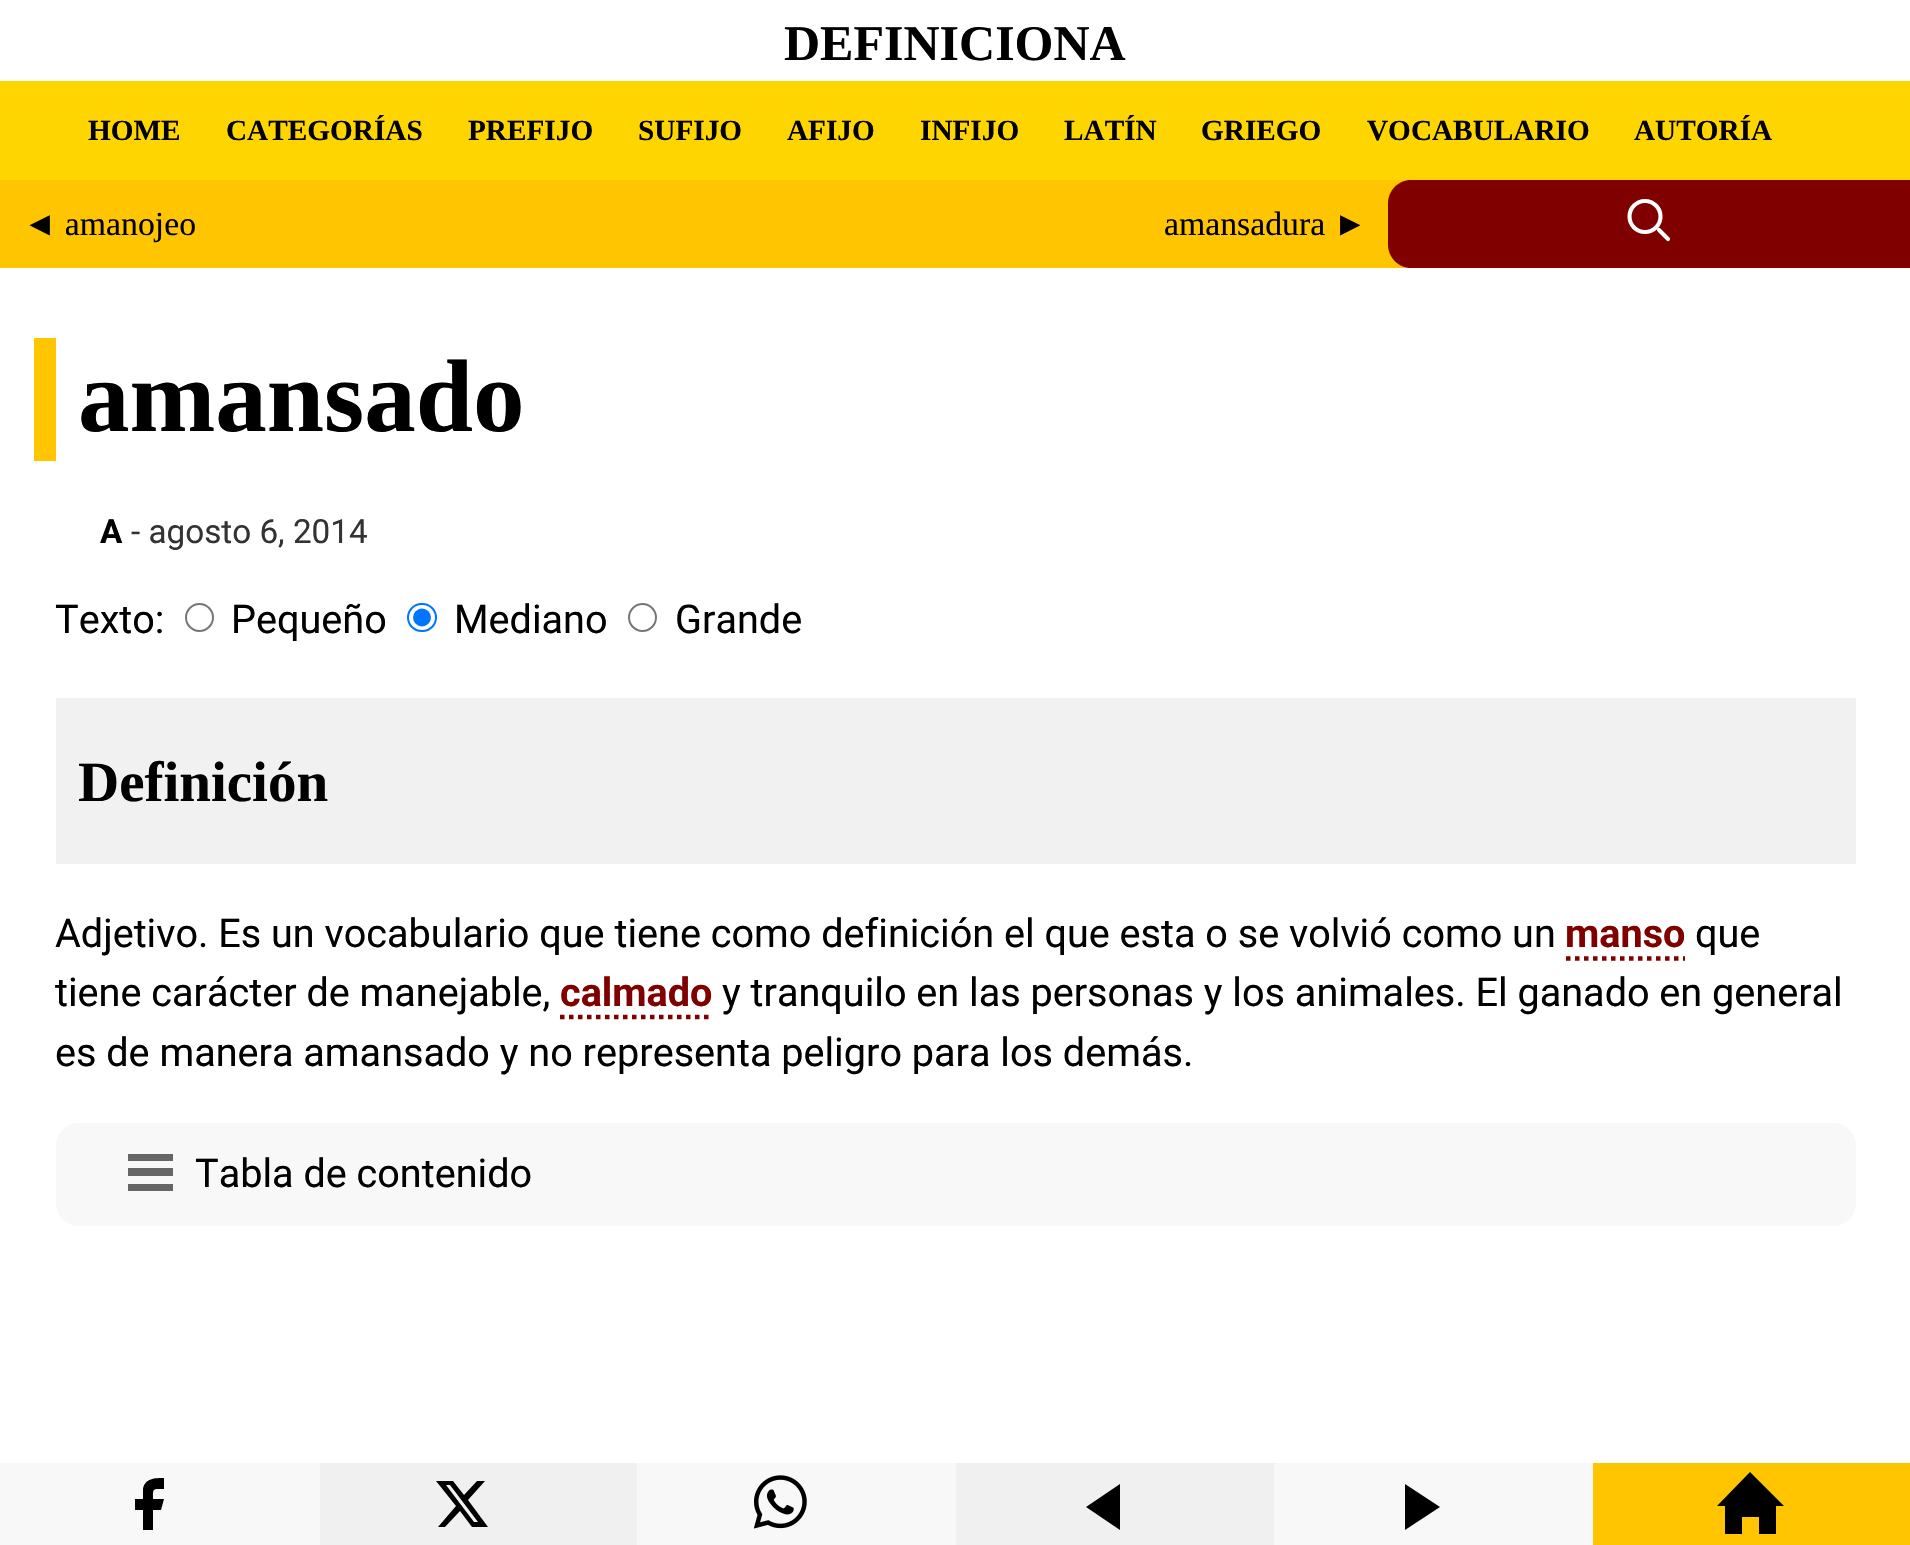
#include "include/core/SkBlurTypes.h"
#include "include/core/SkCanvas.h"
#include "include/core/SkData.h"
#include "include/core/SkFont.h"
#include "include/core/SkFontMgr.h"
#include "include/core/SkImage.h"
#include "include/core/SkMaskFilter.h"
#include "include/core/SkPaint.h"
#include "include/core/SkPathBuilder.h"
#include "include/core/SkTextBlob.h"
#include "include/effects/SkDashPathEffect.h"
#include "include/effects/SkGradientShader.h"
#include "include/utils/SkParsePath.h"

extern sk_sp<SkFontMgr> fontMgr;

static SkFont font(const char* family, int weight, float size, bool italic = false) {
    SkFontStyle style(weight, SkFontStyle::kNormal_Width,
        italic ? SkFontStyle::kItalic_Slant : SkFontStyle::kUpright_Slant);
    SkFont result(fontMgr->matchFamilyStyle(family, style), size);
    result.setSubpixel(true);
    return result;
}

static void drawLabel(SkCanvas* canvas, const char* s, float x, float y, const SkFont& font, SkColor color) {
    SkPaint ink(SkColor4f::FromColor(color));
    ink.setAntiAlias(true);
    canvas->drawString(s, x, y, font, ink);
}

static void fillRect(SkCanvas* canvas, float x, float y, float w, float h, SkColor color) {
    SkPaint ink(SkColor4f::FromColor(color));
    ink.setAntiAlias(true);
    canvas->drawRect(SkRect::MakeXYWH(x, y, w, h), ink);
}

static void fillRRect(SkCanvas* canvas, float x, float y, float w, float h, float radius, SkColor color) {
    SkPaint ink(SkColor4f::FromColor(color));
    ink.setAntiAlias(true);
    canvas->drawRoundRect(SkRect::MakeXYWH(x, y, w, h), radius, radius, ink);
}

static void drawPhoto(SkCanvas* canvas, const char* path, float x, float y, float w, float h) {
    auto image = SkImages::DeferredFromEncodedData(SkData::MakeFromFileName(path));
    canvas->drawImageRect(image, SkRect::MakeXYWH(x, y, w, h), SkSamplingOptions());
}

static SkPath parsePath(const char* data, bool evenOdd = false) {
    SkPath result = *SkParsePath::FromSVGString(data);
    if (evenOdd) result.setFillType(SkPathFillType::kEvenOdd);
    return result;
}

void draw(SkCanvas* canvas) {
    SkPaint paint;
    paint.setAntiAlias(true);
    canvas->clear(0xFFFFFFFF);
    SkFont font1 = font("Liberation Serif", 700, 50);
    drawLabel(canvas, "DEFINICIONA", 784, 60, font1, 0xFF000000);
    fillRect(canvas, 0, 81, 1910, 99, 0xFFFFD500);
    SkFont font2 = font("Liberation Serif", 700, 29.25f);
    drawLabel(canvas, "HOME", 88, 140, font2, 0xFF000000);
    drawLabel(canvas, "CATEGORÍAS", 226, 140, font2, 0xFF000000);
    drawLabel(canvas, "PREFIJO", 468, 140, font2, 0xFF000000);
    drawLabel(canvas, "SUFIJO", 638, 140, font2, 0xFF000000);
    drawLabel(canvas, "AFIJO", 787, 140, font2, 0xFF000000);
    drawLabel(canvas, "INFIJO", 920, 140, font2, 0xFF000000);
    drawLabel(canvas, "LATÍN", 1064, 140, font2, 0xFF000000);
    drawLabel(canvas, "GRIEGO", 1201, 140, font2, 0xFF000000);
    drawLabel(canvas, "VOCABULARIO", 1367, 140, font2, 0xFF000000);
    drawLabel(canvas, "AUTORÍA", 1634, 140, font2, 0xFF000000);
    fillRect(canvas, 0, 180, 1411, 88, 0xFFFFC500);
    SkFont font3 = font("Liberation Serif", 400, 33.75f);
    drawLabel(canvas, "◄ amanojeo", 23, 235, font3, 0xFF000000);
    drawLabel(canvas, "amansadura ►", 1164, 235, font3, 0xFF000000);
    paint.setColor(0xFF800000);
    canvas->drawPath(parsePath("M1411 180H1910V268H1411C1398.5 268 1388 257.5 1388 245V203C1388 190.5 1398.5 180 1411 180Z"), paint);
    paint.setStroke(true);
    paint.setStrokeWidth(4.1f);
    paint.setColor(0xFFFFFFFF);
    canvas->drawCircle(1645, 216.5f, 15.5f, paint);
    paint.setStrokeCap(SkPaint::kRound_Cap);
    paint.setStrokeJoin(SkPaint::kRound_Join);
    canvas->drawPath(parsePath("M1668 239L1659 230"), paint);
    fillRect(canvas, 34, 338, 22, 123, 0xFFFFC500);
    SkFont font4 = font("Liberation Serif", 700, 103);
    drawLabel(canvas, "amansado", 78, 431, font4, 0xFF000000);
    SkFont font5 = font("Roboto", 700, 33.25f);
    drawLabel(canvas, "A", 100, 543, font5, 0xFF000000);
    SkFont font6 = font("Roboto", 400, 33.25f);
    drawLabel(canvas, "- agosto 6, 2014", 131, 543, font6, 0xFF333333);
    SkFont font7 = font("Roboto", 400, 39.6f);
    drawLabel(canvas, "Texto:", 55, 633, font7, 0xFF000000);
    paint.setStrokeWidth(2);
    paint.setStrokeCap(SkPaint::kButt_Cap);
    paint.setStrokeJoin(SkPaint::kMiter_Join);
    paint.setColor(0xFF767676);
    canvas->drawCircle(199.5f, 617.5f, 13.5f, paint);
    drawLabel(canvas, "Pequeño", 231, 633, font7, 0xFF000000);
    paint.setColor(0xFF0075FF);
    canvas->drawRoundRect(SkRect::MakeXYWH(408, 604, 28, 27), 13.5f, 13.5f, paint);
    paint.setStroke(false);
    canvas->drawCircle(422, 617.5f, 9, paint);
    drawLabel(canvas, "Mediano", 454, 633, font7, 0xFF000000);
    paint.setStroke(true);
    paint.setColor(0xFF767676);
    canvas->drawCircle(642.5f, 617.5f, 13.5f, paint);
    drawLabel(canvas, "Grande", 675, 633, font7, 0xFF000000);
    fillRect(canvas, 56, 698, 1800, 166, 0xFFF1F1F1);
    SkFont font8 = font("Liberation Serif", 700, 57);
    drawLabel(canvas, "Definición", 78, 801, font8, 0xFF000000);
    drawLabel(canvas, "Adjetivo. Es un vocabulario que tiene como definición el que esta o se volvió como un", 55, 947, font7, 0xFF000000);
    SkFont font9 = font("Roboto", 700, 39.6f);
    drawLabel(canvas, "manso", 1565, 947, font9, 0xFF800000);
    paint.setStrokeWidth(4.5f);
    paint.setColor(0xFF800000);
    paint.setPathEffect(SkDashPathEffect::Make({{4.5f, 4.5f}}, 0));
    canvas->drawPath(parsePath("M1566 958.5H1685"), paint);
    paint.setPathEffect(nullptr);
    drawLabel(canvas, "que", 1695, 947, font7, 0xFF000000);
    drawLabel(canvas, "tiene carácter de manejable,", 55, 1006, font7, 0xFF000000);
    drawLabel(canvas, "calmado", 560, 1006, font9, 0xFF800000);
    paint.setPathEffect(SkDashPathEffect::Make({{4.5f, 4.5f}}, 0));
    canvas->drawPath(parsePath("M560 1017H713"), paint);
    paint.setPathEffect(nullptr);
    drawLabel(canvas, "y tranquilo en las personas y los animales. El ganado en general", 722, 1006, font7, 0xFF000000);
    drawLabel(canvas, "es de manera amansado y no representa peligro para los demás.", 55, 1066, font7, 0xFF000000);
    fillRRect(canvas, 56, 1123, 1800, 103, 23, 0xFFF8F8F8);
    paint.setStroke(false);
    paint.setColor(0xFF666666);
    canvas->drawPath(parsePath("M173 1161H128V1154H173ZM173 1168H128V1176H173ZM173 1184H128V1191H173Z"), paint);
    drawLabel(canvas, "Tabla de contenido", 195, 1187, font7, 0xFF000000);
    fillRect(canvas, 0, 1463, 1593, 82, 0xFFF8F8F8);
    paint.setColor(0xFF000000);
    canvas->drawPath(parsePath("M164 1478C155 1478 145 1478 143 1489V1499H135V1510H143V1530H153V1510H161L164 1499H153C153 1488 152 1489 164 1489Z"), paint);
    fillRect(canvas, 320, 1463, 317, 82, 0xFFF0F0F0);
    canvas->drawPath(parsePath("M477 1481H485L468 1500L488 1527H472L460 1511L445 1527H438L456 1506L436 1481H453L464 1495ZM474 1522H478L450 1485H446Z"), paint);
    drawPhoto(canvas, "assets/img1.png", 754, 1475, 53, 54);
    fillRect(canvas, 956, 1463, 318, 82, 0xFFF0F0F0);
    canvas->drawPath(parsePath("M1086 1507L1120 1484V1530Z"), paint);
    canvas->drawPath(parsePath("M1440 1507L1405 1530V1484Z"), paint);
    fillRect(canvas, 1593, 1463, 317, 82, 0xFFFFC500);
    canvas->drawPath(parsePath("M1776 1506V1534H1759V1517H1742V1534H1725V1506H1717L1750 1472L1784 1506Z"), paint);
}
